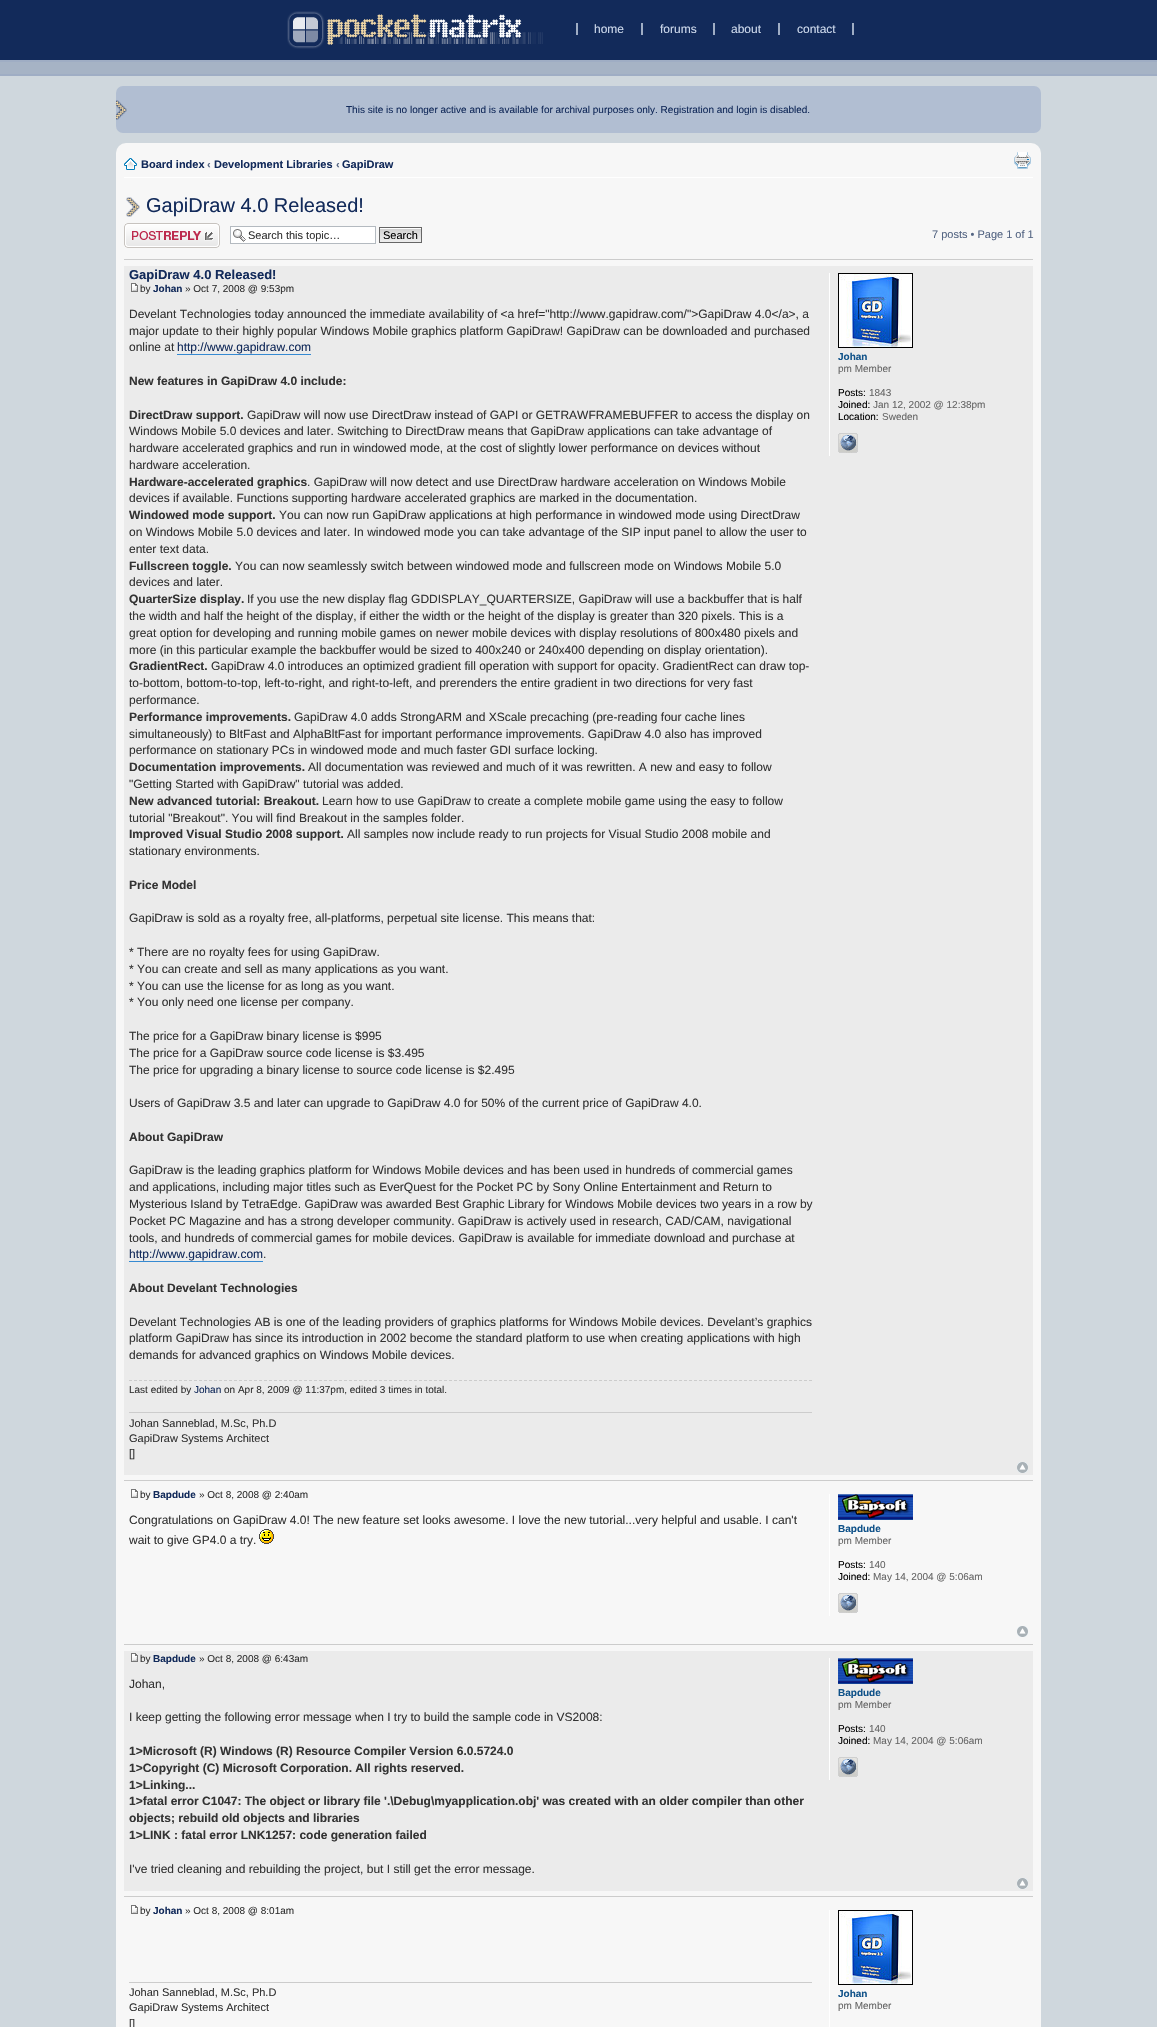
#include "include/core/SkBlurTypes.h"
#include "include/core/SkCanvas.h"
#include "include/core/SkData.h"
#include "include/core/SkFont.h"
#include "include/core/SkFontMgr.h"
#include "include/core/SkImage.h"
#include "include/core/SkMaskFilter.h"
#include "include/core/SkPaint.h"
#include "include/core/SkPathBuilder.h"
#include "include/core/SkTextBlob.h"
#include "include/effects/SkDashPathEffect.h"
#include "include/effects/SkGradientShader.h"
#include "include/utils/SkParsePath.h"

extern sk_sp<SkFontMgr> fontMgr;

static SkFont font(const char* family, int weight, float size, bool italic = false) {
    SkFontStyle style(weight, SkFontStyle::kNormal_Width,
        italic ? SkFontStyle::kItalic_Slant : SkFontStyle::kUpright_Slant);
    SkFont result(fontMgr->matchFamilyStyle(family, style), size);
    result.setSubpixel(true);
    return result;
}

static void drawLabel(SkCanvas* canvas, const char* s, float x, float y, const SkFont& font, SkColor color) {
    SkPaint ink(SkColor4f::FromColor(color));
    ink.setAntiAlias(true);
    canvas->drawString(s, x, y, font, ink);
}

static void fillRect(SkCanvas* canvas, float x, float y, float w, float h, SkColor color) {
    SkPaint ink(SkColor4f::FromColor(color));
    ink.setAntiAlias(true);
    canvas->drawRect(SkRect::MakeXYWH(x, y, w, h), ink);
}

static void fillRRect(SkCanvas* canvas, float x, float y, float w, float h, float radius, SkColor color) {
    SkPaint ink(SkColor4f::FromColor(color));
    ink.setAntiAlias(true);
    canvas->drawRoundRect(SkRect::MakeXYWH(x, y, w, h), radius, radius, ink);
}

static void drawPhoto(SkCanvas* canvas, const char* path, float x, float y, float w, float h) {
    auto image = SkImages::DeferredFromEncodedData(SkData::MakeFromFileName(path));
    canvas->drawImageRect(image, SkRect::MakeXYWH(x, y, w, h), SkSamplingOptions());
}

static SkPath parsePath(const char* data, bool evenOdd = false) {
    SkPath result = *SkParsePath::FromSVGString(data);
    if (evenOdd) result.setFillType(SkPathFillType::kEvenOdd);
    return result;
}

void draw(SkCanvas* canvas) {
    SkPaint paint;
    paint.setAntiAlias(true);
    canvas->clear(0xFFCFD7DD);
    fillRect(canvas, 0, 0, 1157, 60, 0xFF122A5A);
    drawPhoto(canvas, "assets/img1.png", 287, 11, 256, 38);
    SkFont font1 = font("Liberation Sans", 400, 12);
    drawLabel(canvas, "home", 594, 33, font1, 0xFFCDD9EC);
    fillRect(canvas, 576, 23, 2, 12, 0xFF9FADC4);
    drawLabel(canvas, "forums", 660, 33, font1, 0xFFCDD9EC);
    fillRect(canvas, 641, 23, 2, 12, 0xFF9FADC4);
    fillRect(canvas, 713, 23, 2, 12, 0xFF9FADC4);
    drawLabel(canvas, "about", 731, 33, font1, 0xFFCDD9EC);
    fillRect(canvas, 778, 23, 2, 12, 0xFF9FADC4);
    drawLabel(canvas, "contact", 797, 33, font1, 0xFFCDD9EC);
    fillRect(canvas, 852, 23, 2, 12, 0xFF9FADC4);
    fillRect(canvas, 0, 62, 1157, 12, 0xFFA6B3C5);
    fillRect(canvas, 0, 60, 1157, 2, 0xFF9FADC4);
    fillRect(canvas, 0, 74, 1157, 2, 0xFF9FADC4);
    fillRRect(canvas, 116, 86, 925, 47, 7, 0xFFB1BED2);
    drawPhoto(canvas, "assets/img2.png", 116, 100, 11, 20);
    SkFont font2 = font("Liberation Sans", 400, 10);
    drawLabel(canvas, "This site is no longer active and is available for archival purposes only. Registration and login is disabled.", 346, 113, font2, 0xFF122A5A);
    fillRRect(canvas, 116, 143, 925, 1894, 10, 0xFFF7F7F7);
    fillRect(canvas, 124, 177, 909, 1, 0xFFFFFFFF);
    drawPhoto(canvas, "assets/img3.png", 124, 158, 13, 12);
    SkFont font3 = font("Liberation Sans", 700, 11);
    drawLabel(canvas, "Board index", 141, 168, font3, 0xFF122A5A);
    drawLabel(canvas, "‹", 207, 168, font3, 0xFF536482);
    drawLabel(canvas, "Development Libraries", 214, 168, font3, 0xFF122A5A);
    drawLabel(canvas, "‹", 336, 168, font3, 0xFF536482);
    drawLabel(canvas, "GapiDraw", 342, 168, font3, 0xFF122A5A);
    drawPhoto(canvas, "assets/img4.png", 1014, 152, 17, 17);
    drawPhoto(canvas, "assets/img5.png", 126, 197, 14, 20);
    SkFont font4 = font("Liberation Sans", 400, 20);
    drawLabel(canvas, "GapiDraw 4.0 Released!", 146, 212, font4, 0xFF122A5A);
    drawPhoto(canvas, "assets/img6.png", 124, 223, 96, 25);
    fillRect(canvas, 231, 227, 144, 16, 0xFFFFFFFF);
    drawPhoto(canvas, "assets/img7.png", 233, 229, 13, 13);
    paint.setStroke(true);
    paint.setStrokeWidth(1);
    paint.setColor(0xFFB4BAC0);
    canvas->drawRect(SkRect::MakeXYWH(230.5f, 226.5f, 145, 17), paint);
    SkFont font5 = font("Liberation Sans", 400, 11);
    drawLabel(canvas, "Search this topic…", 248, 239, font5, 0xFF333333);
    drawPhoto(canvas, "assets/img8.png", 380, 228, 41, 14);
    paint.setColor(0xFF666666);
    canvas->drawRect(SkRect::MakeXYWH(379.5f, 227.5f, 42, 15), paint);
    drawLabel(canvas, "Search", 383, 239, font5, 0xFF000000);
    drawLabel(canvas, "7 posts • Page 1 of 1", 932, 238, font5, 0xFF536482);
    fillRect(canvas, 124, 259, 909, 1, 0xFFCCCCCC);
    fillRect(canvas, 124, 266, 909, 1209, 0xFFEBEBEB);
    SkFont font6 = font("Liberation Sans", 700, 13);
    drawLabel(canvas, "GapiDraw 4.0 Released!", 129, 279, font6, 0xFF122A5A);
    drawPhoto(canvas, "assets/img9.png", 131, 283, 7, 9);
    drawLabel(canvas, "by", 140, 292, font2, 0xFF333333);
    SkFont font7 = font("Liberation Sans", 700, 10);
    drawLabel(canvas, "Johan", 153, 292, font7, 0xFF122A5A);
    drawLabel(canvas, "» Oct 7, 2008 @ 9:53pm", 185, 292, font2, 0xFF333333);
    drawLabel(canvas, "Develant Technologies today announced the immediate availability of <a href=\"http://www.gapidraw.com/\">GapiDraw 4.0</a>, a", 129, 318, font1, 0xFF333333);
    drawLabel(canvas, "major update to their highly popular Windows Mobile graphics platform GapiDraw! GapiDraw can be downloaded and purchased", 129, 335, font1, 0xFF333333);
    drawLabel(canvas, "online at", 129, 351, font1, 0xFF333333);
    drawLabel(canvas, "http://www.gapidraw.com", 177, 351, font1, 0xFF122A5A);
    fillRect(canvas, 177, 354, 134, 1, 0xFF368AD2);
    SkFont font8 = font("Liberation Sans", 700, 12);
    drawLabel(canvas, "New features in GapiDraw 4.0 include:", 129, 385, font8, 0xFF333333);
    drawLabel(canvas, "DirectDraw support.", 129, 419, font8, 0xFF333333);
    drawLabel(canvas, "GapiDraw will now use DirectDraw instead of GAPI or GETRAWFRAMEBUFFER to access the display on", 247, 419, font1, 0xFF333333);
    drawLabel(canvas, "Windows Mobile 5.0 devices and later. Switching to DirectDraw means that GapiDraw applications can take advantage of", 129, 435, font1, 0xFF333333);
    drawLabel(canvas, "hardware accelerated graphics and run in windowed mode, at the cost of slightly lower performance on devices without", 129, 452, font1, 0xFF333333);
    drawLabel(canvas, "hardware acceleration.", 129, 469, font1, 0xFF333333);
    drawLabel(canvas, "Hardware-accelerated graphics", 129, 486, font8, 0xFF333333);
    drawLabel(canvas, ". GapiDraw will now detect and use DirectDraw hardware acceleration on Windows Mobile", 307, 486, font1, 0xFF333333);
    drawLabel(canvas, "devices if available. Functions supporting hardware accelerated graphics are marked in the documentation.", 129, 502, font1, 0xFF333333);
    drawLabel(canvas, "Windowed mode support.", 129, 519, font8, 0xFF333333);
    drawLabel(canvas, "You can now run GapiDraw applications at high performance in windowed mode using DirectDraw", 279, 519, font1, 0xFF333333);
    drawLabel(canvas, "on Windows Mobile 5.0 devices and later. In windowed mode you can take advantage of the SIP input panel to allow the user to", 129, 536, font1, 0xFF333333);
    drawLabel(canvas, "enter text data.", 129, 553, font1, 0xFF333333);
    drawLabel(canvas, "Fullscreen toggle.", 129, 570, font8, 0xFF333333);
    drawLabel(canvas, "You can now seamlessly switch between windowed mode and fullscreen mode on Windows Mobile 5.0", 235, 570, font1, 0xFF333333);
    drawLabel(canvas, "devices and later.", 129, 586, font1, 0xFF333333);
    drawLabel(canvas, "QuarterSize display.", 129, 603, font8, 0xFF333333);
    drawLabel(canvas, "If you use the new display flag GDDISPLAY_QUARTERSIZE, GapiDraw will use a backbuffer that is half", 247, 603, font1, 0xFF333333);
    drawLabel(canvas, "the width and half the height of the display, if either the width or the height of the display is greater than 320 pixels. This is a", 129, 620, font1, 0xFF333333);
    drawLabel(canvas, "great option for developing and running mobile games on newer mobile devices with display resolutions of 800x480 pixels and", 129, 637, font1, 0xFF333333);
    drawLabel(canvas, "more (in this particular example the backbuffer would be sized to 400x240 or 240x400 depending on display orientation).", 129, 654, font1, 0xFF333333);
    drawLabel(canvas, "GradientRect.", 129, 670, font8, 0xFF333333);
    drawLabel(canvas, "GapiDraw 4.0 introduces an optimized gradient fill operation with support for opacity. GradientRect can draw top-", 211, 670, font1, 0xFF333333);
    drawLabel(canvas, "to-bottom, bottom-to-top, left-to-right, and right-to-left, and prerenders the entire gradient in two directions for very fast", 129, 687, font1, 0xFF333333);
    drawLabel(canvas, "performance.", 129, 704, font1, 0xFF333333);
    drawLabel(canvas, "Performance improvements.", 129, 721, font8, 0xFF333333);
    drawLabel(canvas, "GapiDraw 4.0 adds StrongARM and XScale precaching (pre-reading four cache lines", 294, 721, font1, 0xFF333333);
    drawLabel(canvas, "simultaneously) to BltFast and AlphaBltFast for important performance improvements. GapiDraw 4.0 also has improved", 129, 738, font1, 0xFF333333);
    drawLabel(canvas, "performance on stationary PCs in windowed mode and much faster GDI surface locking.", 129, 754, font1, 0xFF333333);
    drawLabel(canvas, "Documentation improvements.", 129, 771, font8, 0xFF333333);
    drawLabel(canvas, "All documentation was reviewed and much of it was rewritten. A new and easy to follow", 308, 771, font1, 0xFF333333);
    drawLabel(canvas, "\"Getting Started with GapiDraw\" tutorial was added.", 129, 788, font1, 0xFF333333);
    drawLabel(canvas, "New advanced tutorial: Breakout.", 129, 805, font8, 0xFF333333);
    drawLabel(canvas, "Learn how to use GapiDraw to create a complete mobile game using the easy to follow", 322, 805, font1, 0xFF333333);
    drawLabel(canvas, "tutorial \"Breakout\". You will find Breakout in the samples folder.", 129, 822, font1, 0xFF333333);
    drawLabel(canvas, "Improved Visual Studio 2008 support.", 129, 838, font8, 0xFF333333);
    drawLabel(canvas, "All samples now include ready to run projects for Visual Studio 2008 mobile and", 347, 838, font1, 0xFF333333);
    drawLabel(canvas, "stationary environments.", 129, 855, font1, 0xFF333333);
    drawLabel(canvas, "Price Model", 129, 889, font8, 0xFF333333);
    drawLabel(canvas, "GapiDraw is sold as a royalty free, all-platforms, perpetual site license. This means that:", 129, 922, font1, 0xFF333333);
    drawLabel(canvas, "* There are no royalty fees for using GapiDraw.", 129, 956, font1, 0xFF333333);
    drawLabel(canvas, "* You can create and sell as many applications as you want.", 129, 973, font1, 0xFF333333);
    drawLabel(canvas, "* You can use the license for as long as you want.", 129, 990, font1, 0xFF333333);
    drawLabel(canvas, "* You only need one license per company.", 129, 1006, font1, 0xFF333333);
    drawLabel(canvas, "The price for a GapiDraw binary license is $995", 129, 1040, font1, 0xFF333333);
    drawLabel(canvas, "The price for a GapiDraw source code license is $3.495", 129, 1057, font1, 0xFF333333);
    drawLabel(canvas, "The price for upgrading a binary license to source code license is $2.495", 129, 1074, font1, 0xFF333333);
    drawLabel(canvas, "Users of GapiDraw 3.5 and later can upgrade to GapiDraw 4.0 for 50% of the current price of GapiDraw 4.0.", 129, 1107, font1, 0xFF333333);
    drawLabel(canvas, "About GapiDraw", 129, 1141, font8, 0xFF333333);
    drawLabel(canvas, "GapiDraw is the leading graphics platform for Windows Mobile devices and has been used in hundreds of commercial games", 129, 1174, font1, 0xFF333333);
    drawLabel(canvas, "and applications, including major titles such as EverQuest for the Pocket PC by Sony Online Entertainment and Return to", 129, 1191, font1, 0xFF333333);
    drawLabel(canvas, "Mysterious Island by TetraEdge. GapiDraw was awarded Best Graphic Library for Windows Mobile devices two years in a row by", 129, 1208, font1, 0xFF333333);
    drawLabel(canvas, "Pocket PC Magazine and has a strong developer community. GapiDraw is actively used in research, CAD/CAM, navigational", 129, 1225, font1, 0xFF333333);
    drawLabel(canvas, "tools, and hundreds of commercial games for mobile devices. GapiDraw is available for immediate download and purchase at", 129, 1242, font1, 0xFF333333);
    drawLabel(canvas, "http://www.gapidraw.com", 129, 1258, font1, 0xFF122A5A);
    fillRect(canvas, 129, 1261, 134, 1, 0xFF368AD2);
    drawLabel(canvas, ".", 263, 1258, font1, 0xFF333333);
    drawLabel(canvas, "About Develant Technologies", 129, 1292, font8, 0xFF333333);
    drawLabel(canvas, "Develant Technologies AB is one of the leading providers of graphics platforms for Windows Mobile devices. Develant’s graphics", 129, 1326, font1, 0xFF333333);
    drawLabel(canvas, "platform GapiDraw has since its introduction in 2002 become the standard platform to use when creating applications with high", 129, 1342, font1, 0xFF333333);
    drawLabel(canvas, "demands for advanced graphics on Windows Mobile devices.", 129, 1359, font1, 0xFF333333);
    paint.setColor(0xFFCCCCCC);
    paint.setPathEffect(SkDashPathEffect::Make({{3, 2}}, 0));
    canvas->drawPath(parsePath("M129 1380.5H812"), paint);
    paint.setPathEffect(nullptr);
    drawLabel(canvas, "Last edited by", 129, 1393, font2, 0xFF333333);
    drawLabel(canvas, "Johan", 194, 1393, font2, 0xFF122A5A);
    drawLabel(canvas, "on Apr 8, 2009 @ 11:37pm, edited 3 times in total.", 224, 1393, font2, 0xFF333333);
    fillRect(canvas, 129, 1412, 683, 1, 0xFFCCCCCC);
    drawLabel(canvas, "Johan Sanneblad, M.Sc, Ph.D", 129, 1427, font5, 0xFF333333);
    drawLabel(canvas, "GapiDraw Systems Architect", 129, 1442, font5, 0xFF333333);
    drawLabel(canvas, "[]", 129, 1457, font5, 0xFF333333);
    fillRect(canvas, 829, 273, 1, 183, 0xFFFFFFFF);
    drawPhoto(canvas, "assets/img10.png", 838, 273, 75, 75);
    drawLabel(canvas, "Johan", 838, 360, font7, 0xFF105289);
    drawLabel(canvas, "pm Member", 838, 372, font2, 0xFF666666);
    drawLabel(canvas, "Posts:", 838, 396, font2, 0xFF000000);
    drawLabel(canvas, "1843", 869, 396, font2, 0xFF666666);
    drawLabel(canvas, "Joined:", 838, 408, font2, 0xFF000000);
    drawLabel(canvas, "Jan 12, 2002 @ 12:38pm", 873, 408, font2, 0xFF666666);
    drawLabel(canvas, "Location:", 838, 420, font2, 0xFF000000);
    drawLabel(canvas, "Sweden", 882, 420, font2, 0xFF666666);
    drawPhoto(canvas, "assets/img11.png", 838, 433, 20, 20);
    drawPhoto(canvas, "assets/img12.png", 1017, 1462, 11, 11);
    fillRect(canvas, 124, 1480, 909, 1, 0xFFCCCCCC);
    drawPhoto(canvas, "assets/img13.png", 131, 1489, 7, 9);
    drawLabel(canvas, "by", 140, 1498, font2, 0xFF333333);
    drawLabel(canvas, "Bapdude", 153, 1498, font7, 0xFF122A5A);
    drawLabel(canvas, "» Oct 8, 2008 @ 2:40am", 199, 1498, font2, 0xFF333333);
    drawLabel(canvas, "Congratulations on GapiDraw 4.0! The new feature set looks awesome. I love the new tutorial...very helpful and usable. I can't", 129, 1524, font1, 0xFF333333);
    drawLabel(canvas, "wait to give GP4.0 a try.", 129, 1544, font1, 0xFF333333);
    drawPhoto(canvas, "assets/img14.png", 259, 1529, 15, 15);
    fillRect(canvas, 829, 1494, 1, 122, 0xFFFFFFFF);
    drawPhoto(canvas, "assets/img15.png", 838, 1494, 75, 26);
    drawLabel(canvas, "Bapdude", 838, 1532, font7, 0xFF105289);
    drawLabel(canvas, "pm Member", 838, 1544, font2, 0xFF666666);
    drawLabel(canvas, "Posts:", 838, 1568, font2, 0xFF000000);
    drawLabel(canvas, "140", 869, 1568, font2, 0xFF666666);
    drawLabel(canvas, "Joined:", 838, 1580, font2, 0xFF000000);
    drawLabel(canvas, "May 14, 2004 @ 5:06am", 873, 1580, font2, 0xFF666666);
    drawPhoto(canvas, "assets/img16.png", 838, 1593, 20, 20);
    drawPhoto(canvas, "assets/img17.png", 1017, 1626, 11, 11);
    fillRect(canvas, 124, 1644, 909, 1, 0xFFCCCCCC);
    fillRect(canvas, 124, 1651, 909, 240, 0xFFEBEBEB);
    drawPhoto(canvas, "assets/img9.png", 131, 1653, 7, 9);
    drawLabel(canvas, "by", 140, 1662, font2, 0xFF333333);
    drawLabel(canvas, "Bapdude", 153, 1662, font7, 0xFF122A5A);
    drawLabel(canvas, "» Oct 8, 2008 @ 6:43am", 199, 1662, font2, 0xFF333333);
    drawLabel(canvas, "Johan,", 129, 1688, font1, 0xFF333333);
    drawLabel(canvas, "I keep getting the following error message when I try to build the sample code in VS2008:", 129, 1721, font1, 0xFF333333);
    drawLabel(canvas, "1>Microsoft (R) Windows (R) Resource Compiler Version 6.0.5724.0", 129, 1755, font8, 0xFF333333);
    drawLabel(canvas, "1>Copyright (C) Microsoft Corporation. All rights reserved.", 129, 1772, font8, 0xFF333333);
    drawLabel(canvas, "1>Linking...", 129, 1789, font8, 0xFF333333);
    drawLabel(canvas, "1>fatal error C1047: The object or library file '.\\Debug\\myapplication.obj' was created with an older compiler than other", 129, 1805, font8, 0xFF333333);
    drawLabel(canvas, "objects; rebuild old objects and libraries", 129, 1822, font8, 0xFF333333);
    drawLabel(canvas, "1>LINK : fatal error LNK1257: code generation failed", 129, 1839, font8, 0xFF333333);
    drawLabel(canvas, "I've tried cleaning and rebuilding the project, but I still get the error message.", 129, 1873, font1, 0xFF333333);
    fillRect(canvas, 829, 1658, 1, 122, 0xFFFFFFFF);
    drawPhoto(canvas, "assets/img15.png", 838, 1658, 75, 26);
    drawLabel(canvas, "Bapdude", 838, 1696, font7, 0xFF105289);
    drawLabel(canvas, "pm Member", 838, 1708, font2, 0xFF666666);
    drawLabel(canvas, "Posts:", 838, 1732, font2, 0xFF000000);
    drawLabel(canvas, "140", 869, 1732, font2, 0xFF666666);
    drawLabel(canvas, "Joined:", 838, 1744, font2, 0xFF000000);
    drawLabel(canvas, "May 14, 2004 @ 5:06am", 873, 1744, font2, 0xFF666666);
    drawPhoto(canvas, "assets/img11.png", 838, 1757, 20, 20);
    drawPhoto(canvas, "assets/img12.png", 1017, 1878, 11, 11);
    fillRect(canvas, 124, 1896, 909, 1, 0xFFCCCCCC);
    drawPhoto(canvas, "assets/img13.png", 131, 1905, 7, 9);
    drawLabel(canvas, "by", 140, 1914, font2, 0xFF333333);
    drawLabel(canvas, "Johan", 153, 1914, font7, 0xFF122A5A);
    drawLabel(canvas, "» Oct 8, 2008 @ 8:01am", 185, 1914, font2, 0xFF333333);
    fillRect(canvas, 129, 1982, 683, 1, 0xFFCCCCCC);
    drawLabel(canvas, "Johan Sanneblad, M.Sc, Ph.D", 129, 1996, font5, 0xFF333333);
    drawLabel(canvas, "GapiDraw Systems Architect", 129, 2011, font5, 0xFF333333);
    drawLabel(canvas, "[]", 129, 2027, font5, 0xFF333333);
    fillRect(canvas, 829, 1910, 1, 117, 0xFFFFFFFF);
    drawPhoto(canvas, "assets/img10.png", 838, 1910, 75, 75);
    drawLabel(canvas, "Johan", 838, 1997, font7, 0xFF105289);
    drawLabel(canvas, "pm Member", 838, 2009, font2, 0xFF666666);
}
